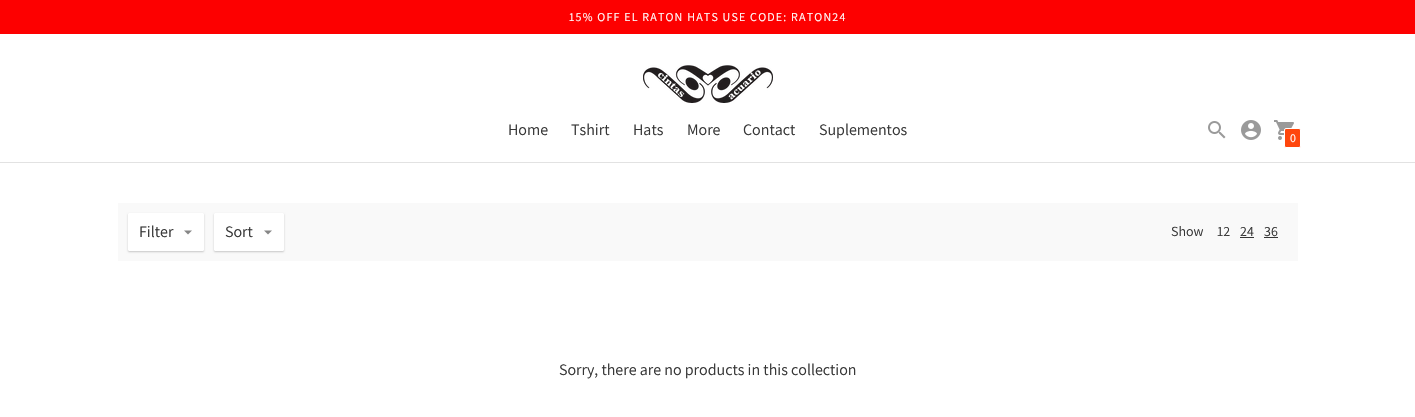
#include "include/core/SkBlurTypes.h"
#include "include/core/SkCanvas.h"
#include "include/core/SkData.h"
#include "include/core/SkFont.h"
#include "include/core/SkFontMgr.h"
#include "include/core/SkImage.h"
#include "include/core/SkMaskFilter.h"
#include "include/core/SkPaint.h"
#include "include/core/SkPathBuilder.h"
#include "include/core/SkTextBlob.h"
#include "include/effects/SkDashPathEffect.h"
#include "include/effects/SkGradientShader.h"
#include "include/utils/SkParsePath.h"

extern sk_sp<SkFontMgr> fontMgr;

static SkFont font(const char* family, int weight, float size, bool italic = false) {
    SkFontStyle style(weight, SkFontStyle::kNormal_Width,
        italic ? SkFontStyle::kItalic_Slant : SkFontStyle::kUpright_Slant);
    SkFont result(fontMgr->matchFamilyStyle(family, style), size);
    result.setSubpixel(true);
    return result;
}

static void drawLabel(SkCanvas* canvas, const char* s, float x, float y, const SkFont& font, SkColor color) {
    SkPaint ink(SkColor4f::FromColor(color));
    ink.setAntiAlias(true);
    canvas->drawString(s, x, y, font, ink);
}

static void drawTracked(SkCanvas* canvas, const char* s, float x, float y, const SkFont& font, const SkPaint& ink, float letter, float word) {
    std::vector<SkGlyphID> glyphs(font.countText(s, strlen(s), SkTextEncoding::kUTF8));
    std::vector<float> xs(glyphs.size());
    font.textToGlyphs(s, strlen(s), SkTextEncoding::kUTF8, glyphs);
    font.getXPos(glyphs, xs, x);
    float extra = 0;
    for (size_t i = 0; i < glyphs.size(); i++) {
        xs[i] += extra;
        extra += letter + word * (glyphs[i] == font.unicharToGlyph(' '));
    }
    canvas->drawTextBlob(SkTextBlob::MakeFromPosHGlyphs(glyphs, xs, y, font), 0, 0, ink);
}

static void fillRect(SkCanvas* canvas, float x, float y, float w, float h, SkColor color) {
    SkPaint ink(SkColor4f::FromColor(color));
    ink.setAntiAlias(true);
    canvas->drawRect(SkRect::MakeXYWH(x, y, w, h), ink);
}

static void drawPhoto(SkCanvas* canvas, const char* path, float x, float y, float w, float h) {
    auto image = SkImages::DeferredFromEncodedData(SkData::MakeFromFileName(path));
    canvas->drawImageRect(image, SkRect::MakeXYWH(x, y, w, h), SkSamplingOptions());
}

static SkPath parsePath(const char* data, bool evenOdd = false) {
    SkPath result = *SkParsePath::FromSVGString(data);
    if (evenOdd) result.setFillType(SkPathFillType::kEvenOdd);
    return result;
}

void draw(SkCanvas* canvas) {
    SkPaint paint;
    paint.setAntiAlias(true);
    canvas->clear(0xFFFFFFFF);
    fillRect(canvas, 0, 0, 1415, 34, 0xFFFD0000);
    SkFont font1 = font("Assistant", 400, 12);
    paint.setColor(0xFFFFFFFF);
    drawTracked(canvas, "15% OFF EL RATON HATS USE CODE: RATON24", 569, 21, font1, paint, 1.2f, 0);
    fillRect(canvas, 0, 162, 1415, 1, 0xFFE2E2E2);
    drawPhoto(canvas, "assets/img1.png", 643, 65, 130, 38);
    SkFont font2 = font("Assistant", 400, 16);
    drawLabel(canvas, "Home", 508, 135, font2, 0xFF363636);
    drawLabel(canvas, "Tshirt", 571, 135, font2, 0xFF363636);
    drawLabel(canvas, "Hats", 633, 135, font2, 0xFF363636);
    drawLabel(canvas, "More", 687, 135, font2, 0xFF363636);
    drawLabel(canvas, "Contact", 743, 135, font2, 0xFF363636);
    drawLabel(canvas, "Suplementos", 819, 135, font2, 0xFF363636);
    drawPhoto(canvas, "assets/img2.png", 1208, 121, 18, 18);
    drawPhoto(canvas, "assets/img3.png", 1241, 120, 20, 20);
    drawPhoto(canvas, "assets/img4.png", 1274, 120, 20, 20);
    paint.setColor(0xFFFF460C);
    canvas->drawRoundRect(SkRect::MakeXYWH(1284.5f, 128.5f, 16, 19), 1.5f, 1.5f, paint);
    paint.setStroke(true);
    paint.setStrokeWidth(1);
    paint.setColor(0xFFFFFFFF);
    canvas->drawRoundRect(SkRect::MakeXYWH(1284.5f, 128.5f, 16, 19), 1.5f, 1.5f, paint);
    drawLabel(canvas, "0", 1290, 142, font1, 0xFFFFFFFF);
    fillRect(canvas, 118, 203, 1180, 58, 0xFFF9F9F9);
    paint.setStroke(false);
    paint.setColor(0x33000000);
    paint.setMaskFilter(SkMaskFilter::MakeBlur(kNormal_SkBlurStyle, 1));
    canvas->drawRoundRect(SkRect::MakeXYWH(128, 214, 76, 38), 1, 1, paint);
    paint.setMaskFilter(nullptr);
    paint.setColor(0xFFFFFFFF);
    canvas->drawRoundRect(SkRect::MakeXYWH(128.5f, 213.5f, 75, 37), 0.5f, 0.5f, paint);
    paint.setStroke(true);
    canvas->drawRoundRect(SkRect::MakeXYWH(128.5f, 213.5f, 75, 37), 0.5f, 0.5f, paint);
    drawLabel(canvas, "Filter", 139, 237, font2, 0xFF363636);
    paint.setStroke(false);
    paint.setColor(0xFF868686);
    canvas->drawPath(parsePath("M184 230.5L188 234.5L192 230.5Z"), paint);
    paint.setColor(0x33000000);
    paint.setMaskFilter(SkMaskFilter::MakeBlur(kNormal_SkBlurStyle, 1));
    canvas->drawRoundRect(SkRect::MakeXYWH(214, 214, 70, 38), 1, 1, paint);
    paint.setMaskFilter(nullptr);
    paint.setColor(0xFFFFFFFF);
    canvas->drawRoundRect(SkRect::MakeXYWH(214.5f, 213.5f, 69, 37), 0.5f, 0.5f, paint);
    paint.setStroke(true);
    canvas->drawRoundRect(SkRect::MakeXYWH(214.5f, 213.5f, 69, 37), 0.5f, 0.5f, paint);
    drawLabel(canvas, "Sort", 225, 237, font2, 0xFF363636);
    paint.setStroke(false);
    paint.setColor(0xFF868686);
    canvas->drawPath(parsePath("M264 230.5L268 234.5L272 230.5Z"), paint);
    SkFont font3 = font("Assistant", 400, 14);
    drawLabel(canvas, "Show", 1171, 236, font3, 0xFF363636);
    drawLabel(canvas, "12", 1217, 236, font3, 0xFF363636);
    drawLabel(canvas, "24", 1240, 236, font3, 0xFF363636);
    fillRect(canvas, 1240, 237, 14, 1, 0xFF363636);
    drawLabel(canvas, "36", 1264, 236, font3, 0xFF363636);
    fillRect(canvas, 1264, 237, 14, 1, 0xFF363636);
    drawLabel(canvas, "Sorry, there are no products in this collection", 559, 375, font2, 0xFF363636);
}
